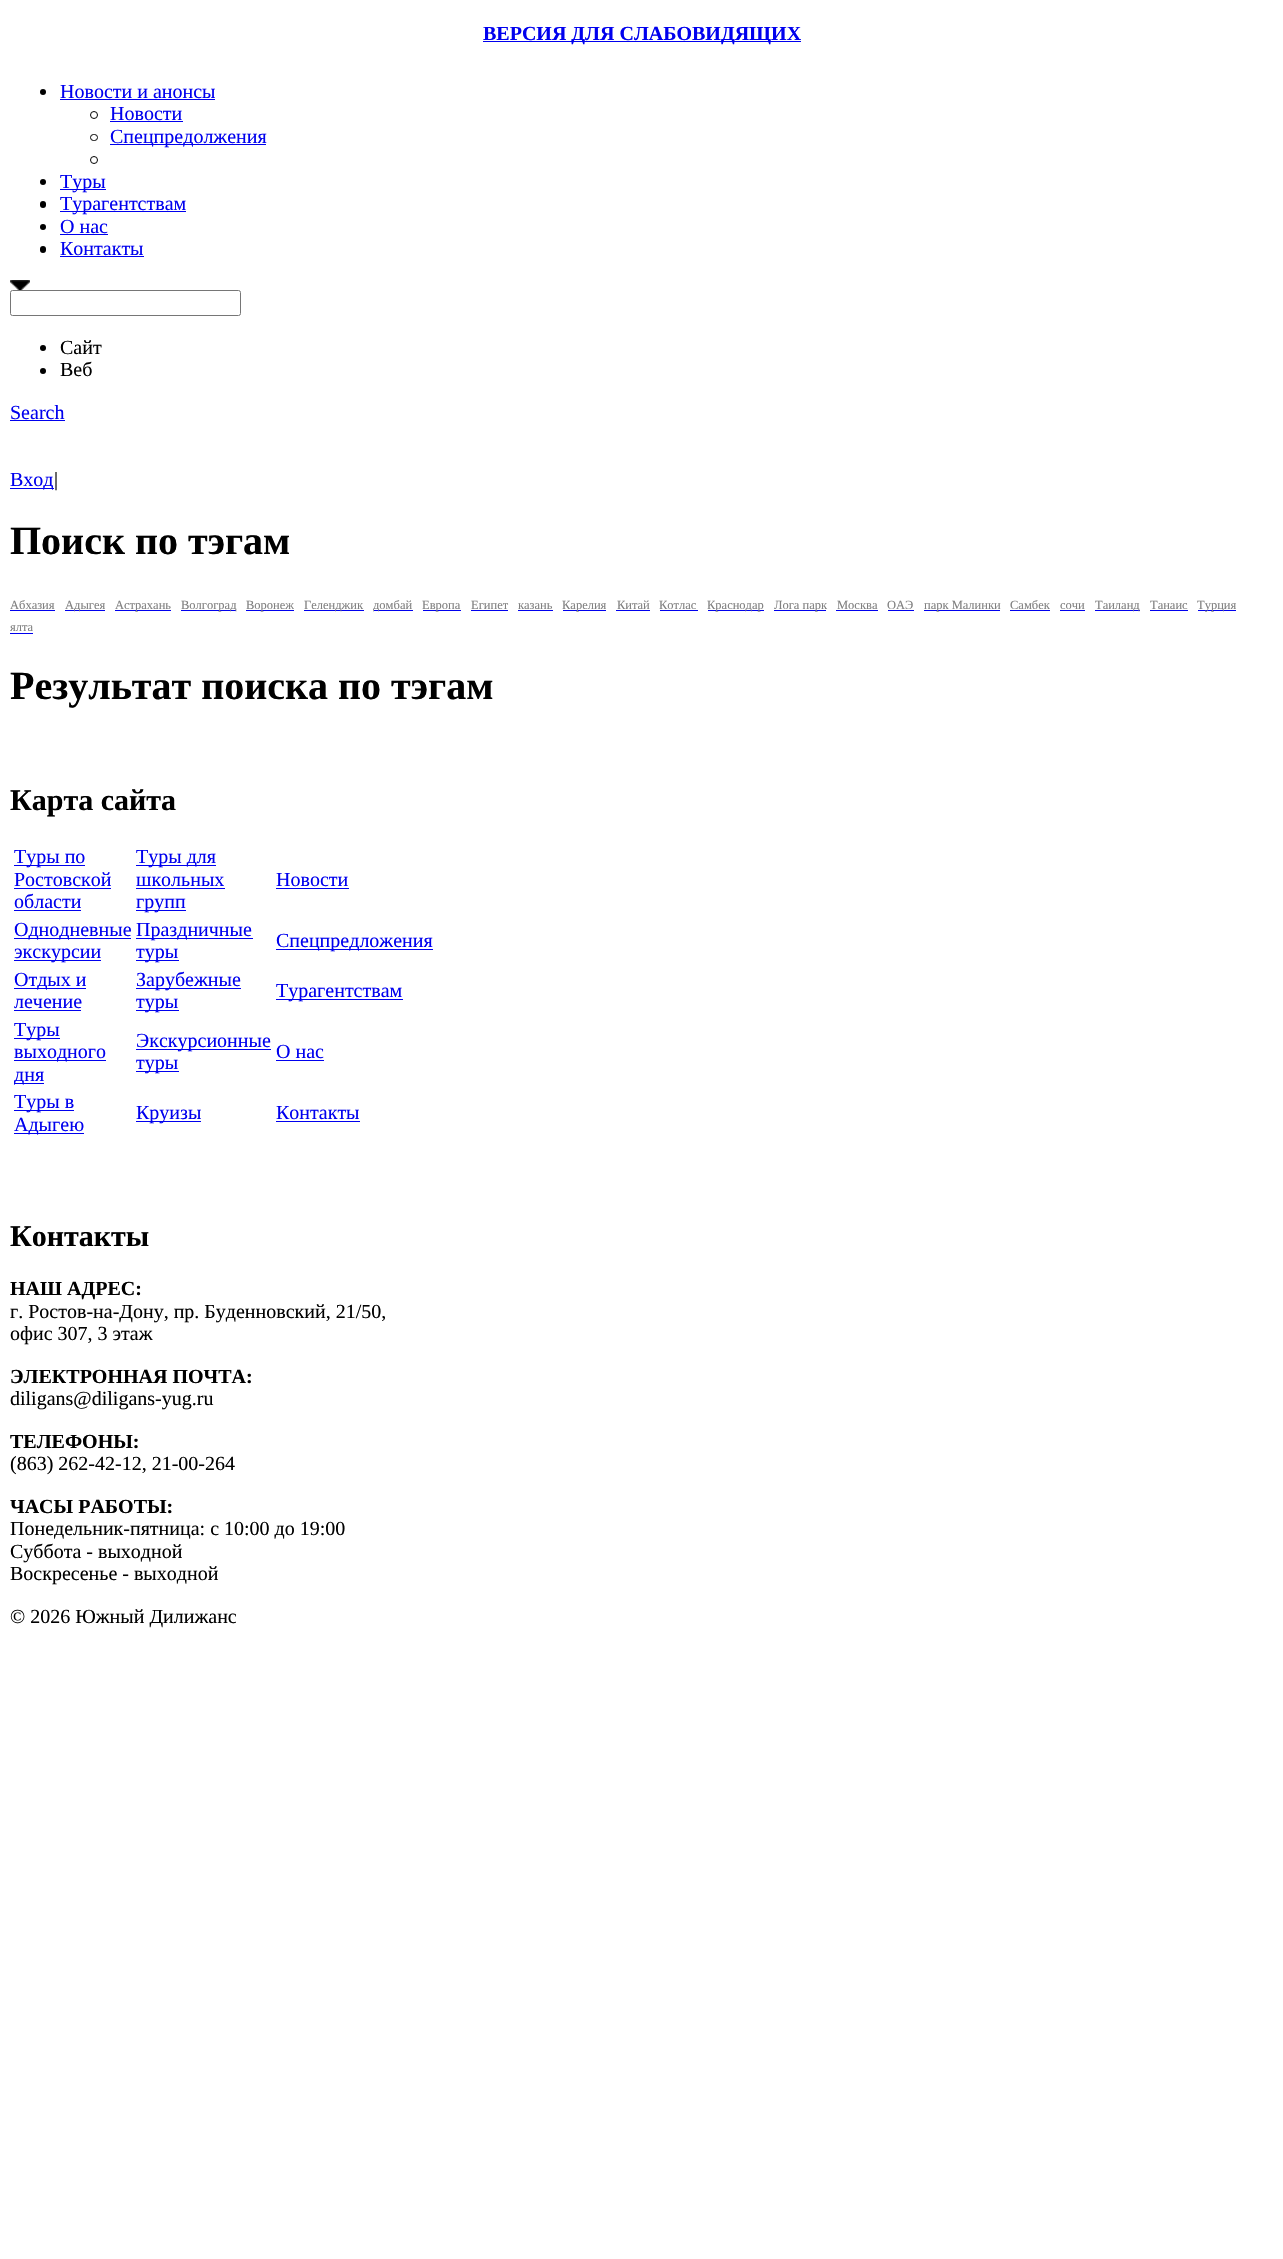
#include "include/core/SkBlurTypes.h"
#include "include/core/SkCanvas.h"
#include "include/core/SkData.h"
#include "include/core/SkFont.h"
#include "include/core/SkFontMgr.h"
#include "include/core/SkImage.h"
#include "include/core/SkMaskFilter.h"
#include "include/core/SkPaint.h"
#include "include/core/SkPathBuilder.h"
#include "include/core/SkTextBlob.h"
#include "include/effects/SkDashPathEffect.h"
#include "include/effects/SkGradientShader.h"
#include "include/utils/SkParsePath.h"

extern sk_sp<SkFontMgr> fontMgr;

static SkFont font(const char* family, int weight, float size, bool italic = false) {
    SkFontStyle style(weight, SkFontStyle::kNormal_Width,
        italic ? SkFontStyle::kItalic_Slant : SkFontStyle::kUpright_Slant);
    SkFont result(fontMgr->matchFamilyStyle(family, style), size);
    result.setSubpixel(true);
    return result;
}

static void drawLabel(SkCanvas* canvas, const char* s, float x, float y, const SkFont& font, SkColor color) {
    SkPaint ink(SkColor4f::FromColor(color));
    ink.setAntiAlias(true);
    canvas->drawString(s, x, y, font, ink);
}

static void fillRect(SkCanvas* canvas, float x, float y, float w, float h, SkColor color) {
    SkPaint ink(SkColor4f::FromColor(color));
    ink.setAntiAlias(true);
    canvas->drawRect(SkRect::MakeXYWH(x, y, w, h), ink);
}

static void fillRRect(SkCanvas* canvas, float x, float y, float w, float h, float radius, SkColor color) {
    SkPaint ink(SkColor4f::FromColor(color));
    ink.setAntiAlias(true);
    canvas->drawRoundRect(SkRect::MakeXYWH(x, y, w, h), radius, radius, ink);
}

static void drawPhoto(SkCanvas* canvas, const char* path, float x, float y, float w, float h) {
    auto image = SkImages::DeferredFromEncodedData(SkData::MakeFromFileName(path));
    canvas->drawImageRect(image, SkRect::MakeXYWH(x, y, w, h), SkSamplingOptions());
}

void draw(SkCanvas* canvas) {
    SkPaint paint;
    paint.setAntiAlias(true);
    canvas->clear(0xFFFFFFFF);
    fillRect(canvas, 483, 41, 318, 1, 0xFF0000EE);
    SkFont font1 = font("Liberation Serif", 700, 20);
    drawLabel(canvas, "ВЕРСИЯ ДЛЯ СЛАБОВИДЯЩИХ", 483, 40, font1, 0xFF0000EE);
    paint.setColor(0xFF000000);
    canvas->drawCircle(43, 92, 3, paint);
    SkFont font2 = font("Liberation Serif", 400, 20);
    drawLabel(canvas, "Новости и анонсы", 60, 98, font2, 0xFF0000EE);
    fillRect(canvas, 60, 99, 155, 1, 0xFF0000EE);
    paint.setStroke(true);
    paint.setStrokeWidth(1);
    canvas->drawCircle(94, 115, 3.5f, paint);
    drawLabel(canvas, "Новости", 110, 120, font2, 0xFF0000EE);
    fillRect(canvas, 110, 121, 73, 1, 0xFF0000EE);
    canvas->drawRoundRect(SkRect::MakeXYWH(90.5f, 134.5f, 7, 6), 3, 3, paint);
    fillRect(canvas, 110, 144, 156, 1, 0xFF0000EE);
    drawLabel(canvas, "Спецпредолжения", 110, 143, font2, 0xFF0000EE);
    canvas->drawCircle(94, 160, 3.5f, paint);
    paint.setStroke(false);
    canvas->drawCircle(43, 182, 3, paint);
    fillRect(canvas, 60, 189, 46, 1, 0xFF0000EE);
    drawLabel(canvas, "Туры", 60, 188, font2, 0xFF0000EE);
    fillRRect(canvas, 40, 201, 6, 7, 3, 0xFF000000);
    fillRect(canvas, 60, 211, 126, 1, 0xFF0000EE);
    drawLabel(canvas, "Турагентствам", 60, 210, font2, 0xFF0000EE);
    canvas->drawCircle(43, 227, 3, paint);
    drawLabel(canvas, "О нас", 60, 233, font2, 0xFF0000EE);
    fillRect(canvas, 60, 234, 48, 1, 0xFF0000EE);
    fillRRect(canvas, 40, 246, 6, 7, 3, 0xFF000000);
    drawLabel(canvas, "Контакты", 60, 255, font2, 0xFF0000EE);
    fillRect(canvas, 60, 256, 84, 1, 0xFF0000EE);
    drawPhoto(canvas, "assets/img1.png", 10, 280, 20, 10);
    paint.setStroke(true);
    paint.setColor(0xFF767676);
    canvas->drawRoundRect(SkRect::MakeXYWH(10.5f, 290.5f, 230, 25), 2, 2, paint);
    paint.setStroke(false);
    paint.setColor(0xFF000000);
    canvas->drawCircle(43, 348, 3, paint);
    drawLabel(canvas, "Сайт", 60, 354, font2, 0xFF000000);
    canvas->drawCircle(43, 371, 3, paint);
    drawLabel(canvas, "Веб", 60, 376, font2, 0xFF000000);
    drawLabel(canvas, "Search", 10, 419, font2, 0xFF0000EE);
    fillRect(canvas, 10, 420, 55, 1, 0xFF0000EE);
    fillRect(canvas, 10, 488, 44, 1, 0xFF0000EE);
    drawLabel(canvas, "Вход", 10, 486, font2, 0xFF0000EE);
    drawLabel(canvas, "|", 54, 486, font2, 0xFF000000);
    SkFont font3 = font("Liberation Serif", 700, 40);
    drawLabel(canvas, "Поиск по тэгам", 10, 554, font3, 0xFF000000);
    SkFont font4 = font("Liberation Serif", 400, 12.5f);
    drawLabel(canvas, "Абхазия", 10, 609, font4, 0xFF808080);
    fillRect(canvas, 10, 610, 45, 1, 0xFF0000EE);
    fillRect(canvas, 65, 610, 40, 1, 0xFF0000EE);
    drawLabel(canvas, "Адыгея", 65, 609, font4, 0xFF808080);
    fillRect(canvas, 115, 610, 56, 1, 0xFF0000EE);
    drawLabel(canvas, "Астрахань", 115, 609, font4, 0xFF808080);
    fillRect(canvas, 181, 610, 55, 1, 0xFF0000EE);
    drawLabel(canvas, "Волгоград", 181, 609, font4, 0xFF808080);
    fillRect(canvas, 246, 610, 48, 1, 0xFF0000EE);
    drawLabel(canvas, "Воронеж", 246, 609, font4, 0xFF808080);
    fillRect(canvas, 304, 610, 60, 1, 0xFF0000EE);
    drawLabel(canvas, "Геленджик", 304, 609, font4, 0xFF808080);
    fillRect(canvas, 374, 610, 39, 1, 0xFF0000EE);
    drawLabel(canvas, "домбай", 373, 609, font4, 0xFF808080);
    fillRect(canvas, 423, 610, 38, 1, 0xFF0000EE);
    drawLabel(canvas, "Европа", 422, 609, font4, 0xFF808080);
    drawLabel(canvas, "Египет", 471, 609, font4, 0xFF808080);
    fillRect(canvas, 471, 610, 37, 1, 0xFF0000EE);
    drawLabel(canvas, "казань", 518, 609, font4, 0xFF808080);
    fillRect(canvas, 518, 610, 35, 1, 0xFF0000EE);
    fillRect(canvas, 563, 610, 43, 1, 0xFF0000EE);
    drawLabel(canvas, "Карелия", 562, 609, font4, 0xFF808080);
    drawLabel(canvas, "Китай", 617, 609, font4, 0xFF808080);
    fillRect(canvas, 616, 610, 34, 1, 0xFF0000EE);
    drawLabel(canvas, "Котлас", 659, 609, font4, 0xFF808080);
    fillRect(canvas, 660, 610, 38, 1, 0xFF0000EE);
    fillRect(canvas, 708, 610, 56, 1, 0xFF0000EE);
    drawLabel(canvas, "Краснодар", 707, 609, font4, 0xFF808080);
    fillRect(canvas, 774, 610, 52, 1, 0xFF0000EE);
    drawLabel(canvas, "Лога парк", 774, 609, font4, 0xFF808080);
    drawLabel(canvas, "Москва", 837, 609, font4, 0xFF808080);
    fillRect(canvas, 836, 610, 42, 1, 0xFF0000EE);
    drawLabel(canvas, "ОАЭ", 887, 609, font4, 0xFF808080);
    fillRect(canvas, 888, 610, 26, 1, 0xFF0000EE);
    fillRect(canvas, 924, 610, 76, 1, 0xFF0000EE);
    drawLabel(canvas, "парк Малинки", 924, 609, font4, 0xFF808080);
    drawLabel(canvas, "Самбек", 1010, 609, font4, 0xFF808080);
    fillRect(canvas, 1010, 610, 40, 1, 0xFF0000EE);
    drawLabel(canvas, "сочи", 1060, 609, font4, 0xFF808080);
    fillRect(canvas, 1060, 610, 25, 1, 0xFF0000EE);
    fillRect(canvas, 1095, 610, 45, 1, 0xFF0000EE);
    drawLabel(canvas, "Таиланд", 1095, 609, font4, 0xFF808080);
    drawLabel(canvas, "Танаис", 1150, 609, font4, 0xFF808080);
    fillRect(canvas, 1150, 610, 38, 1, 0xFF0000EE);
    fillRect(canvas, 1198, 610, 38, 1, 0xFF0000EE);
    drawLabel(canvas, "Турция", 1197, 609, font4, 0xFF808080);
    drawLabel(canvas, "ялта", 10, 631, font4, 0xFF808080);
    fillRect(canvas, 10, 633, 23, 1, 0xFF0000EE);
    drawLabel(canvas, "Результат поиска по тэгам", 10, 699, font3, 0xFF000000);
    SkFont font5 = font("Liberation Serif", 700, 30);
    drawLabel(canvas, "Карта сайта", 10, 810, font5, 0xFF000000);
    fillRect(canvas, 14, 865, 71, 1, 0xFF0000EE);
    drawLabel(canvas, "Туры по", 14, 863, font2, 0xFF0000EE);
    drawLabel(canvas, "Ростовской", 14, 886, font2, 0xFF0000EE);
    fillRect(canvas, 14, 888, 97, 1, 0xFF0000EE);
    drawLabel(canvas, "области", 14, 908, font2, 0xFF0000EE);
    fillRect(canvas, 14, 910, 67, 1, 0xFF0000EE);
    fillRect(canvas, 136, 865, 80, 1, 0xFF0000EE);
    drawLabel(canvas, "Туры для", 136, 863, font2, 0xFF0000EE);
    drawLabel(canvas, "школьных", 136, 886, font2, 0xFF0000EE);
    fillRect(canvas, 136, 888, 89, 1, 0xFF0000EE);
    fillRect(canvas, 136, 910, 50, 1, 0xFF0000EE);
    drawLabel(canvas, "групп", 136, 908, font2, 0xFF0000EE);
    drawLabel(canvas, "Новости", 276, 886, font2, 0xFF0000EE);
    fillRect(canvas, 276, 888, 73, 1, 0xFF0000EE);
    fillRect(canvas, 14, 938, 117, 1, 0xFF0000EE);
    drawLabel(canvas, "Однодневные", 14, 936, font2, 0xFF0000EE);
    fillRect(canvas, 14, 960, 87, 1, 0xFF0000EE);
    drawLabel(canvas, "экскурсии", 14, 958, font2, 0xFF0000EE);
    fillRect(canvas, 136, 938, 117, 1, 0xFF0000EE);
    drawLabel(canvas, "Праздничные", 136, 936, font2, 0xFF0000EE);
    fillRect(canvas, 136, 960, 43, 1, 0xFF0000EE);
    drawLabel(canvas, "туры", 136, 958, font2, 0xFF0000EE);
    fillRect(canvas, 276, 949, 157, 1, 0xFF0000EE);
    drawLabel(canvas, "Спецпредложения", 276, 947, font2, 0xFF0000EE);
    fillRect(canvas, 14, 988, 72, 1, 0xFF0000EE);
    drawLabel(canvas, "Отдых и", 14, 986, font2, 0xFF0000EE);
    drawLabel(canvas, "лечение", 14, 1008, font2, 0xFF0000EE);
    fillRect(canvas, 14, 1010, 67, 1, 0xFF0000EE);
    fillRect(canvas, 136, 988, 105, 1, 0xFF0000EE);
    drawLabel(canvas, "Зарубежные", 136, 986, font2, 0xFF0000EE);
    fillRect(canvas, 136, 1010, 43, 1, 0xFF0000EE);
    drawLabel(canvas, "туры", 136, 1008, font2, 0xFF0000EE);
    fillRect(canvas, 276, 999, 127, 1, 0xFF0000EE);
    drawLabel(canvas, "Турагентствам", 276, 997, font2, 0xFF0000EE);
    fillRect(canvas, 14, 1038, 46, 1, 0xFF0000EE);
    drawLabel(canvas, "Туры", 14, 1036, font2, 0xFF0000EE);
    fillRect(canvas, 14, 1060, 92, 1, 0xFF0000EE);
    drawLabel(canvas, "выходного", 14, 1058, font2, 0xFF0000EE);
    fillRect(canvas, 14, 1083, 30, 1, 0xFF0000EE);
    drawLabel(canvas, "дня", 14, 1081, font2, 0xFF0000EE);
    fillRect(canvas, 136, 1049, 135, 1, 0xFF0000EE);
    drawLabel(canvas, "Экскурсионные", 136, 1047, font2, 0xFF0000EE);
    fillRect(canvas, 136, 1071, 43, 1, 0xFF0000EE);
    drawLabel(canvas, "туры", 136, 1069, font2, 0xFF0000EE);
    drawLabel(canvas, "О нас", 276, 1058, font2, 0xFF0000EE);
    fillRect(canvas, 276, 1060, 48, 1, 0xFF0000EE);
    fillRect(canvas, 14, 1110, 60, 1, 0xFF0000EE);
    drawLabel(canvas, "Туры в", 14, 1108, font2, 0xFF0000EE);
    fillRect(canvas, 14, 1133, 70, 1, 0xFF0000EE);
    drawLabel(canvas, "Адыгею", 14, 1131, font2, 0xFF0000EE);
    fillRect(canvas, 136, 1121, 65, 1, 0xFF0000EE);
    drawLabel(canvas, "Круизы", 136, 1119, font2, 0xFF0000EE);
    drawLabel(canvas, "Контакты", 276, 1119, font2, 0xFF0000EE);
    fillRect(canvas, 276, 1121, 84, 1, 0xFF0000EE);
    drawLabel(canvas, "Контакты", 10, 1246, font5, 0xFF000000);
    drawLabel(canvas, "НАШ АДРЕС:", 10, 1295, font1, 0xFF000000);
    drawLabel(canvas, "г. Ростов-на-Дону, пр. Буденновский, 21/50,", 10, 1318, font2, 0xFF000000);
    drawLabel(canvas, "офис 307, 3 этаж", 10, 1340, font2, 0xFF000000);
    drawLabel(canvas, "ЭЛЕКТРОННАЯ ПОЧТА:", 10, 1383, font1, 0xFF000000);
    drawLabel(canvas, "diligans@diligans-yug.ru", 10, 1405, font2, 0xFF000000);
    drawLabel(canvas, "ТЕЛЕФОНЫ:", 10, 1448, font1, 0xFF000000);
    drawLabel(canvas, "(863) 262-42-12, 21-00-264", 10, 1470, font2, 0xFF000000);
    drawLabel(canvas, "ЧАСЫ РАБОТЫ:", 10, 1513, font1, 0xFF000000);
    drawLabel(canvas, "Понедельник-пятница: с 10:00 до 19:00", 10, 1535, font2, 0xFF000000);
    drawLabel(canvas, "Суббота - выходной", 10, 1558, font2, 0xFF000000);
    drawLabel(canvas, "Воскресенье - выходной", 10, 1580, font2, 0xFF000000);
    drawLabel(canvas, "© 2026 Южный Дилижанс", 10, 1623, font2, 0xFF000000);
}
